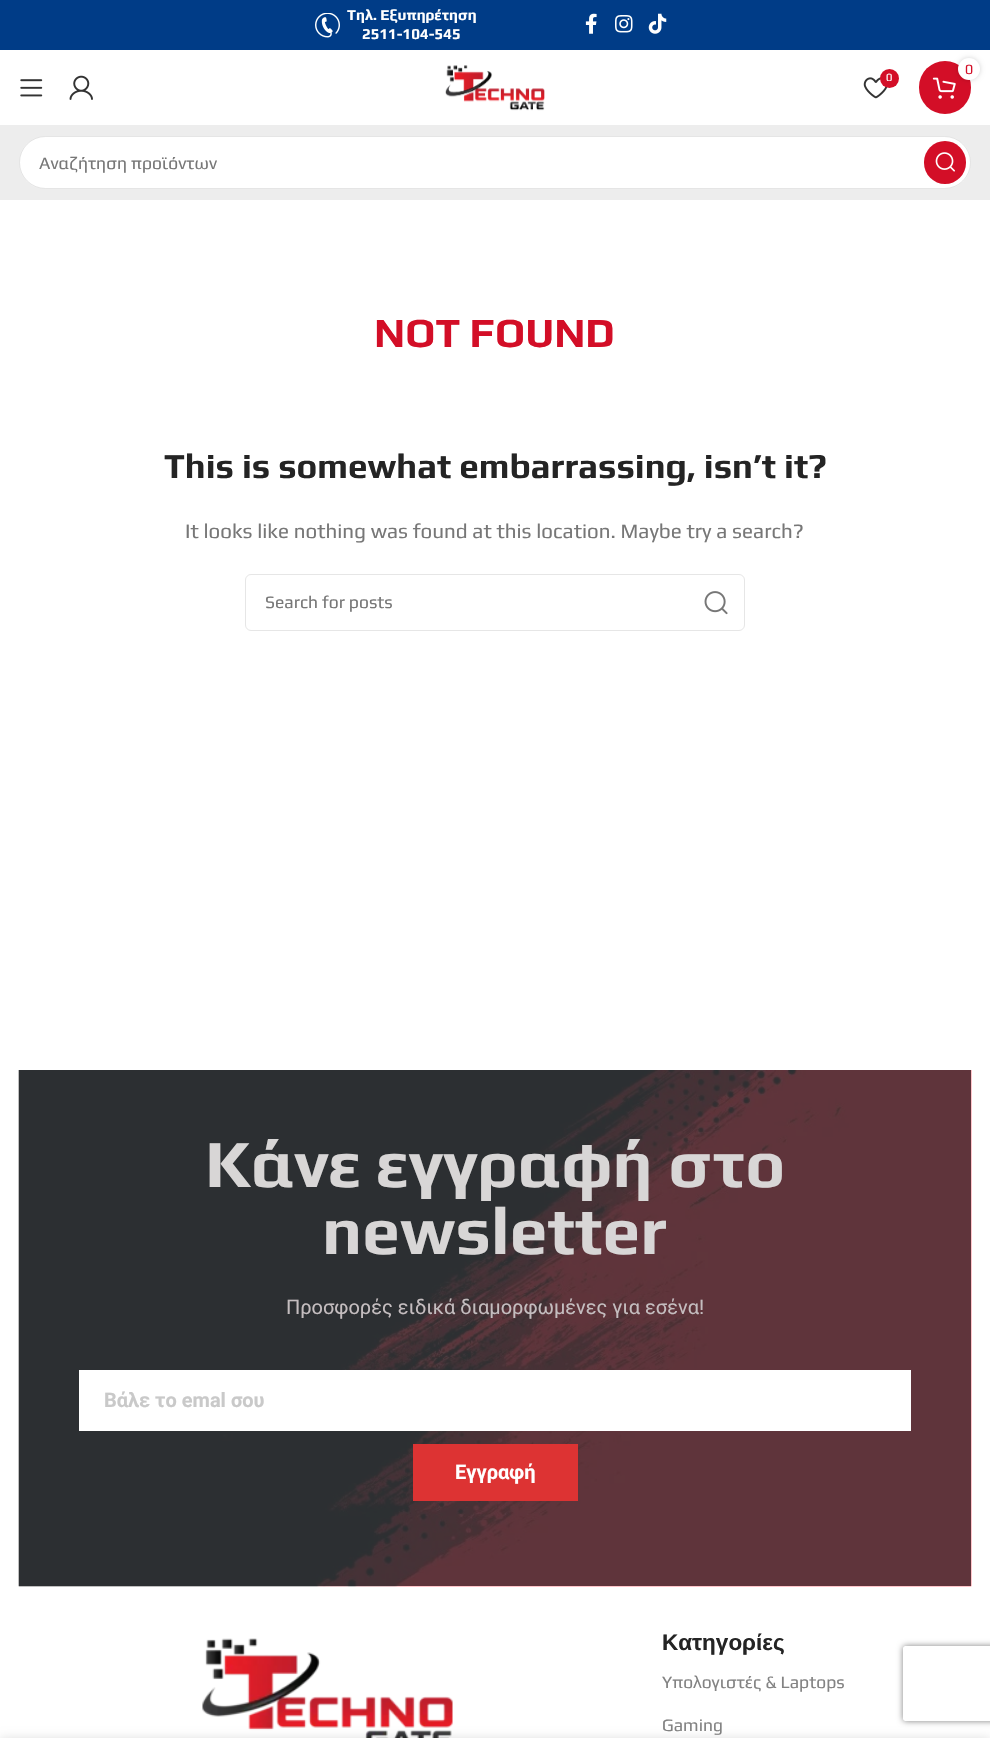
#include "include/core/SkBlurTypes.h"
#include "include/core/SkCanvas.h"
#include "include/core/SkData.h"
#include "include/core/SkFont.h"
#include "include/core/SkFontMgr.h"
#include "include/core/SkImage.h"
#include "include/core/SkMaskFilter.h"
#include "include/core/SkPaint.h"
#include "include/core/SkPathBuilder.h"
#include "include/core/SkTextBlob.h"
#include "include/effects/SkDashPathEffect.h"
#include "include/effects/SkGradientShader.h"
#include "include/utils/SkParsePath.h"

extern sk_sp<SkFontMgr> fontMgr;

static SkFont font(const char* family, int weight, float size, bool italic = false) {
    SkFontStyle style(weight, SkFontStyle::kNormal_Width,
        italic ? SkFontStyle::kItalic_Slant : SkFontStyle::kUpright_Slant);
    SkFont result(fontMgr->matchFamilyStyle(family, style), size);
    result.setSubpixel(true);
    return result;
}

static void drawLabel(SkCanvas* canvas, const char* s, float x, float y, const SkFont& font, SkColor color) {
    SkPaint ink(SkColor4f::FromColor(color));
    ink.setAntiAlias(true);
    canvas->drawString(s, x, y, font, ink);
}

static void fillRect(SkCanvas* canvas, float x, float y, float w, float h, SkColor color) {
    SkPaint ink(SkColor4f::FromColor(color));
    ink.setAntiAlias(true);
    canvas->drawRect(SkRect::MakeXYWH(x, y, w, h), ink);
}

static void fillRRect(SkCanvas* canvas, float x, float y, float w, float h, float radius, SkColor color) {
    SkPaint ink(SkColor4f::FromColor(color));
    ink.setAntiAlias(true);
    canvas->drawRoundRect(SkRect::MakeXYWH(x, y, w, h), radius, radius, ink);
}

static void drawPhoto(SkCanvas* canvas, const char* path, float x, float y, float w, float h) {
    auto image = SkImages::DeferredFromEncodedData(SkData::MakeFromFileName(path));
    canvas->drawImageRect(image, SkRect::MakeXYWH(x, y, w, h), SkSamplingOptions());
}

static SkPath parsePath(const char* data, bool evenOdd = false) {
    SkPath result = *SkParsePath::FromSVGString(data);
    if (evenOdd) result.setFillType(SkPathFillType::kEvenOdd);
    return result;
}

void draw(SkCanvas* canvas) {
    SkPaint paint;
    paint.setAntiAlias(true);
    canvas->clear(0xFFFFFFFF);
    fillRect(canvas, 0, 0, 990, 50, 0xFF003C87);
    drawPhoto(canvas, "assets/img1.png", 315, 13, 25, 25);
    SkFont font1 = font("Play", 700, 15);
    drawLabel(canvas, "Τηλ. Εξυπηρέτηση", 347, 20, font1, 0xFFFFFFFF);
    drawLabel(canvas, "2511-104-545", 362, 39, font1, 0xFFFFFFFF);
    drawPhoto(canvas, "assets/img2.png", 585, 13, 12, 21);
    drawPhoto(canvas, "assets/img3.png", 615, 15, 18, 18);
    drawPhoto(canvas, "assets/img4.png", 648, 13, 19, 21);
    drawPhoto(canvas, "assets/img5.png", 20, 79, 23, 18);
    drawPhoto(canvas, "assets/img6.png", 69, 75, 24, 25);
    drawPhoto(canvas, "assets/img7.png", 445, 65, 100, 46);
    fillRRect(canvas, 919, 61, 52, 53, 26, 0xFFD30E27);
    drawPhoto(canvas, "assets/img8.png", 932, 77, 24, 22);
    paint.setColor(0x2B000000);
    paint.setMaskFilter(SkMaskFilter::MakeBlur(kNormal_SkBlurStyle, 2.5f));
    canvas->drawRoundRect(SkRect::MakeXYWH(958, 58, 22, 22), 11, 11, paint);
    paint.setMaskFilter(nullptr);
    paint.setColor(0xFFFFFFFF);
    canvas->drawCircle(969, 69, 11, paint);
    SkFont font2 = font("Play", 400, 14);
    drawLabel(canvas, "0", 965, 74, font2, 0xFFD30E27);
    drawPhoto(canvas, "assets/img9.png", 863, 77, 25, 22);
    paint.setColor(0xFFD30E27);
    canvas->drawCircle(889.5f, 78.5f, 9.5f, paint);
    SkFont font3 = font("Play", 400, 11);
    drawLabel(canvas, "0", 886, 81, font3, 0xFFFFFFFF);
    fillRect(canvas, 0, 125, 990, 75, 0xFFEDEDED);
    fillRRect(canvas, 19, 136, 952, 53, 26.5f, 0xFFFFFFFF);
    paint.setStroke(true);
    paint.setStrokeWidth(1);
    paint.setColor(0x1A000000);
    canvas->drawRoundRect(SkRect::MakeXYWH(19.5f, 136.5f, 951, 52), 26, 26, paint);
    SkFont font4 = font("Play", 400, 17.5f);
    drawLabel(canvas, "Αναζήτηση προϊόντων", 39, 169, font4, 0xFF777777);
    fillRRect(canvas, 924, 141, 42, 43, 21, 0xFFD30E27);
    drawPhoto(canvas, "assets/img10.png", 935, 152, 20, 20);
    SkFont font5 = font("Play", 700, 41.5f);
    drawLabel(canvas, "NOT FOUND", 374, 347, font5, 0xFFD30E27);
    SkFont font6 = font("Play", 700, 35);
    drawLabel(canvas, "This is somewhat embarrassing, isn’t it?", 164, 478, font6, 0xFF242424);
    SkFont font7 = font("Play", 400, 20.6f);
    drawLabel(canvas, "It looks like nothing was found at this location. Maybe try a search?", 185, 538, font7, 0xFF777777);
    paint.setColor(0xFFE6E6E6);
    canvas->drawRoundRect(SkRect::MakeXYWH(245.5f, 574.5f, 499, 56), 5.5f, 5.5f, paint);
    drawLabel(canvas, "Search for posts", 265, 608, font4, 0xFF777777);
    drawPhoto(canvas, "assets/img11.png", 704, 591, 24, 24);
    drawPhoto(canvas, "assets/img12.png", 18, 1070, 954, 517);
    SkFont font8 = font("Play", 700, 67.5f);
    drawLabel(canvas, "Κάνε εγγραφή στο", 205, 1187, font8, 0xFFD8D6D6);
    drawLabel(canvas, "newsletter", 322, 1254, font8, 0xFFD8D6D6);
    SkFont font9 = font("Roboto", 400, 20);
    drawLabel(canvas, "Προσφορές ειδικά διαμορφωμένες για εσένα!", 286, 1314, font9, 0xFFC4BDBF);
    fillRect(canvas, 79, 1370, 832, 61, 0xFFFFFFFF);
    SkFont font10 = font("Roboto", 700, 20);
    drawLabel(canvas, "Βάλε το emal σου", 104, 1407, font10, 0xFFC9C9C9);
    fillRect(canvas, 413, 1444, 165, 57, 0xFFDD3333);
    drawLabel(canvas, "Εγγραφή", 455, 1479, font10, 0xFFFFFFFF);
    drawPhoto(canvas, "assets/img13.png", 202, 1638, 251, 100);
    SkFont font11 = font("Liberation Sans", 700, 22.5f);
    drawLabel(canvas, "Κατηγορίες", 662, 1650, font11, 0xFF242424);
    drawLabel(canvas, "Υπολογιστές & Laptops", 662, 1688, font4, 0xFF838383);
    drawLabel(canvas, "Gaming", 662, 1731, font4, 0xFF838383);
    canvas->save();
    canvas->clipPath(parsePath("M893 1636H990V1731H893ZM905.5 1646H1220.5C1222 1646 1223 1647 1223 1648.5V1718.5C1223 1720 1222 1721 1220.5 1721H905.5C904 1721 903 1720 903 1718.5V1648.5C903 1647 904 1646 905.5 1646Z", true), true);
    paint.setStroke(false);
    paint.setColor(0xFF808080);
    paint.setMaskFilter(SkMaskFilter::MakeBlur(kNormal_SkBlurStyle, 3));
    canvas->drawRoundRect(SkRect::MakeXYWH(903, 1646, 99, 75), 2.5f, 2.5f, paint);
    paint.setMaskFilter(nullptr);
    canvas->restore();
    paint.setColor(0x24000000);
    paint.setMaskFilter(SkMaskFilter::MakeBlur(kNormal_SkBlurStyle, 5.5f));
    canvas->drawRect(SkRect::MakeXYWH(0, 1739, 990, 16), paint);
    paint.setMaskFilter(nullptr);
}
